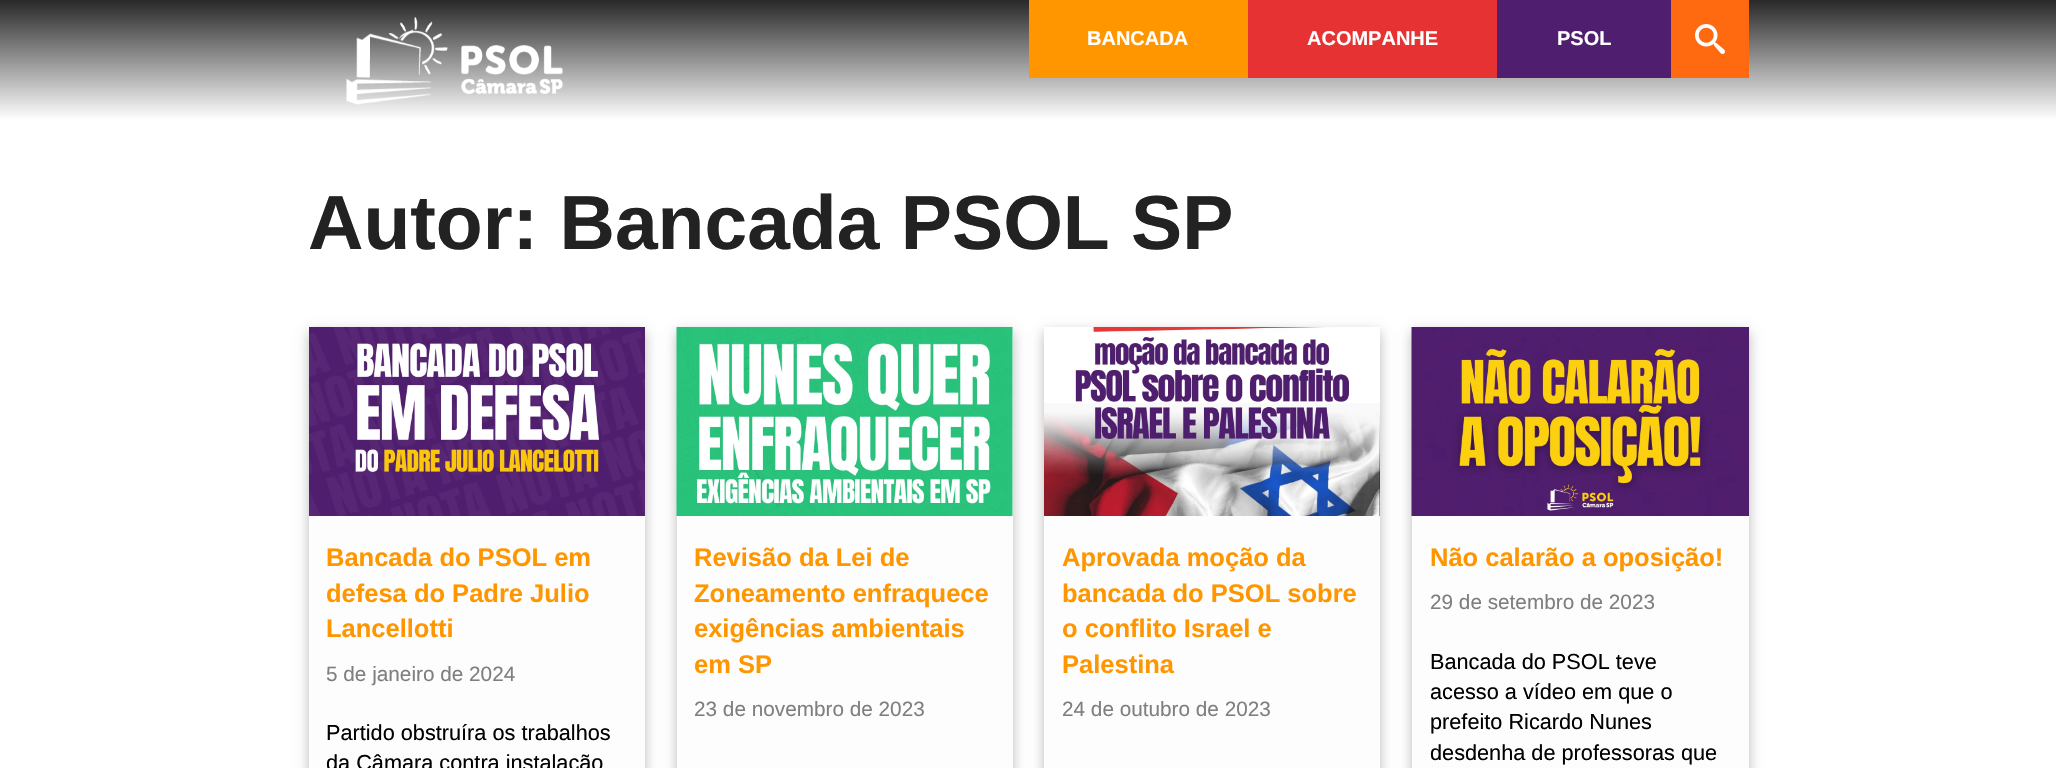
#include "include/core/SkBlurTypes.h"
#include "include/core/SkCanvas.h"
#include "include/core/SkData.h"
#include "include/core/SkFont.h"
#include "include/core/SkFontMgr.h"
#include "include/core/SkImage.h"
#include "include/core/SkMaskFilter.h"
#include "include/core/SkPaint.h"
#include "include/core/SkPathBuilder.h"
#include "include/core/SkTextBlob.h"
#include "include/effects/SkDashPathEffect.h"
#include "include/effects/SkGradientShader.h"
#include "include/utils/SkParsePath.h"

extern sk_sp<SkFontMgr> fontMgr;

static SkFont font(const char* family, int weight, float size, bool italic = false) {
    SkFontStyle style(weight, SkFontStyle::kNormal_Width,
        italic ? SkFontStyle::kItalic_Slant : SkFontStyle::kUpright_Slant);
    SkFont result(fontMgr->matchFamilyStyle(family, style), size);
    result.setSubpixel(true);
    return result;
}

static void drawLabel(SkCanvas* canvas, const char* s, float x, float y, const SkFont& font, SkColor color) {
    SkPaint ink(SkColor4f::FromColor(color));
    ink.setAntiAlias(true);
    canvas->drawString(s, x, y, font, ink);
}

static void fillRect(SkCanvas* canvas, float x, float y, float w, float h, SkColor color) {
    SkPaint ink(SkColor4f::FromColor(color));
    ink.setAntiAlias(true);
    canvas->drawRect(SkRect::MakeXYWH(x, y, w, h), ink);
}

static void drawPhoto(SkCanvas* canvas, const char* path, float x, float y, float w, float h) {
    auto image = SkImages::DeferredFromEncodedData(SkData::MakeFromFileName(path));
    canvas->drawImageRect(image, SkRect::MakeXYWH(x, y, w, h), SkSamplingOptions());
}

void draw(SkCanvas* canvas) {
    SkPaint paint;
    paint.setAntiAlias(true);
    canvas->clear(0xFFFFFFFF);
    {
        const SkColor colors[] = {0xFF282828, 0xFFFFFFFF};
        const float stops[] = {0, 1};
        const SkPoint ends[] = {{1028, 0}, {1028, 120}};
        paint.setShader(SkGradientShader::MakeLinear(ends, colors, stops, 2, SkTileMode::kClamp));
        paint.setAlpha(255);
    }
    canvas->drawRect(SkRect::MakeXYWH(0, 0, 2056, 119), paint);
    drawPhoto(canvas, "assets/img1.png", 346, 17, 217, 88);
    fillRect(canvas, 1029, 0, 219, 78, 0xFFFF9600);
    SkFont font1 = font("Liberation Sans", 700, 20);
    drawLabel(canvas, "BANCADA", 1087, 45, font1, 0xFFFFFFFF);
    fillRect(canvas, 1248, 0, 249, 78, 0xFFE63232);
    drawLabel(canvas, "ACOMPANHE", 1307, 45, font1, 0xFFFFFFFF);
    fillRect(canvas, 1497, 0, 174, 78, 0xFF501E6E);
    drawLabel(canvas, "PSOL", 1557, 45, font1, 0xFFFFFFFF);
    fillRect(canvas, 1671, 0, 78, 78, 0xFFFF690F);
    drawPhoto(canvas, "assets/img2.png", 1695, 24, 30, 30);
    SkFont font2 = font("Liberation Sans", 700, 76.75f);
    drawLabel(canvas, "Autor: Bancada PSOL SP", 308, 249, font2, 0xFF222222);
    paint.setShader(nullptr);
    paint.setColor(0x45000000);
    paint.setMaskFilter(SkMaskFilter::MakeBlur(kNormal_SkBlurStyle, 6));
    canvas->drawRect(SkRect::MakeXYWH(309, 332, 336, 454), paint);
    paint.setMaskFilter(nullptr);
    fillRect(canvas, 309, 516, 336, 252, 0xFFFDFDFD);
    drawPhoto(canvas, "assets/img3.png", 309, 327, 336, 189);
    SkFont font3 = font("Liberation Sans", 700, 25.5f);
    drawLabel(canvas, "Bancada do PSOL em", 326, 566, font3, 0xFFFF9600);
    drawLabel(canvas, "defesa do Padre Julio", 326, 602, font3, 0xFFFF9600);
    drawLabel(canvas, "Lancellotti", 326, 637, font3, 0xFFFF9600);
    SkFont font4 = font("Liberation Sans", 400, 20.75f);
    drawLabel(canvas, "5 de janeiro de 2024", 326, 681, font4, 0xFF7F7F7F);
    SkFont font5 = font("Liberation Sans", 400, 21.7f);
    drawLabel(canvas, "Partido obstruíra os trabalhos", 326, 740, font5, 0xFF000000);
    drawLabel(canvas, "da Câmara contra instalação", 326, 770, font5, 0xFF000000);
    paint.setMaskFilter(SkMaskFilter::MakeBlur(kNormal_SkBlurStyle, 6));
    canvas->drawRect(SkRect::MakeXYWH(677, 332, 336, 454), paint);
    paint.setMaskFilter(nullptr);
    fillRect(canvas, 677, 327, 336, 441, 0xFFFDFDFD);
    drawPhoto(canvas, "assets/img4.png", 676, 327, 337, 189);
    drawLabel(canvas, "Revisão da Lei de", 694, 566, font3, 0xFFFF9600);
    drawLabel(canvas, "Zoneamento enfraquece", 694, 602, font3, 0xFFFF9600);
    drawLabel(canvas, "exigências ambientais", 694, 637, font3, 0xFFFF9600);
    drawLabel(canvas, "em SP", 694, 673, font3, 0xFFFF9600);
    drawLabel(canvas, "23 de novembro de 2023", 694, 716, font4, 0xFF7F7F7F);
    paint.setMaskFilter(SkMaskFilter::MakeBlur(kNormal_SkBlurStyle, 6));
    canvas->drawRect(SkRect::MakeXYWH(1044, 332, 336, 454), paint);
    paint.setMaskFilter(nullptr);
    fillRect(canvas, 1044, 516, 336, 252, 0xFFFDFDFD);
    drawPhoto(canvas, "assets/img5.png", 1044, 327, 336, 189);
    drawLabel(canvas, "Aprovada moção da", 1062, 566, font3, 0xFFFF9600);
    drawLabel(canvas, "bancada do PSOL sobre", 1062, 602, font3, 0xFFFF9600);
    drawLabel(canvas, "o conflito Israel e", 1062, 637, font3, 0xFFFF9600);
    drawLabel(canvas, "Palestina", 1062, 673, font3, 0xFFFF9600);
    drawLabel(canvas, "24 de outubro de 2023", 1062, 716, font4, 0xFF7F7F7F);
    paint.setMaskFilter(SkMaskFilter::MakeBlur(kNormal_SkBlurStyle, 6));
    canvas->drawRect(SkRect::MakeXYWH(1412, 332, 337, 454), paint);
    paint.setMaskFilter(nullptr);
    fillRect(canvas, 1412, 516, 337, 252, 0xFFFDFDFD);
    drawPhoto(canvas, "assets/img6.png", 1411, 327, 338, 189);
    drawLabel(canvas, "Não calarão a oposição!", 1430, 566, font3, 0xFFFF9600);
    drawLabel(canvas, "29 de setembro de 2023", 1430, 609, font4, 0xFF7F7F7F);
    drawLabel(canvas, "Bancada do PSOL teve", 1430, 669, font5, 0xFF000000);
    drawLabel(canvas, "acesso a vídeo em que o", 1430, 699, font5, 0xFF000000);
    drawLabel(canvas, "prefeito Ricardo Nunes", 1430, 729, font5, 0xFF000000);
    drawLabel(canvas, "desdenha de professoras que", 1430, 760, font5, 0xFF000000);
}
